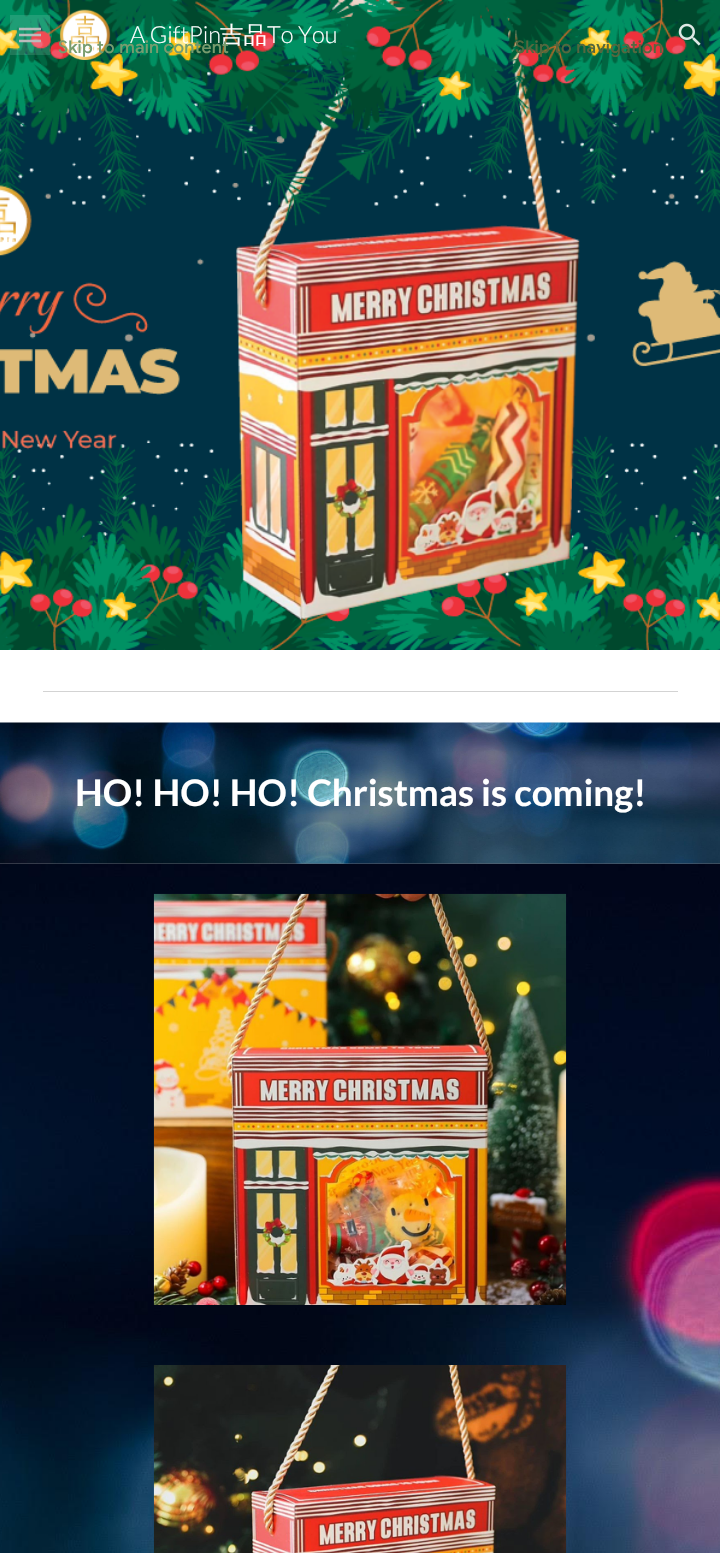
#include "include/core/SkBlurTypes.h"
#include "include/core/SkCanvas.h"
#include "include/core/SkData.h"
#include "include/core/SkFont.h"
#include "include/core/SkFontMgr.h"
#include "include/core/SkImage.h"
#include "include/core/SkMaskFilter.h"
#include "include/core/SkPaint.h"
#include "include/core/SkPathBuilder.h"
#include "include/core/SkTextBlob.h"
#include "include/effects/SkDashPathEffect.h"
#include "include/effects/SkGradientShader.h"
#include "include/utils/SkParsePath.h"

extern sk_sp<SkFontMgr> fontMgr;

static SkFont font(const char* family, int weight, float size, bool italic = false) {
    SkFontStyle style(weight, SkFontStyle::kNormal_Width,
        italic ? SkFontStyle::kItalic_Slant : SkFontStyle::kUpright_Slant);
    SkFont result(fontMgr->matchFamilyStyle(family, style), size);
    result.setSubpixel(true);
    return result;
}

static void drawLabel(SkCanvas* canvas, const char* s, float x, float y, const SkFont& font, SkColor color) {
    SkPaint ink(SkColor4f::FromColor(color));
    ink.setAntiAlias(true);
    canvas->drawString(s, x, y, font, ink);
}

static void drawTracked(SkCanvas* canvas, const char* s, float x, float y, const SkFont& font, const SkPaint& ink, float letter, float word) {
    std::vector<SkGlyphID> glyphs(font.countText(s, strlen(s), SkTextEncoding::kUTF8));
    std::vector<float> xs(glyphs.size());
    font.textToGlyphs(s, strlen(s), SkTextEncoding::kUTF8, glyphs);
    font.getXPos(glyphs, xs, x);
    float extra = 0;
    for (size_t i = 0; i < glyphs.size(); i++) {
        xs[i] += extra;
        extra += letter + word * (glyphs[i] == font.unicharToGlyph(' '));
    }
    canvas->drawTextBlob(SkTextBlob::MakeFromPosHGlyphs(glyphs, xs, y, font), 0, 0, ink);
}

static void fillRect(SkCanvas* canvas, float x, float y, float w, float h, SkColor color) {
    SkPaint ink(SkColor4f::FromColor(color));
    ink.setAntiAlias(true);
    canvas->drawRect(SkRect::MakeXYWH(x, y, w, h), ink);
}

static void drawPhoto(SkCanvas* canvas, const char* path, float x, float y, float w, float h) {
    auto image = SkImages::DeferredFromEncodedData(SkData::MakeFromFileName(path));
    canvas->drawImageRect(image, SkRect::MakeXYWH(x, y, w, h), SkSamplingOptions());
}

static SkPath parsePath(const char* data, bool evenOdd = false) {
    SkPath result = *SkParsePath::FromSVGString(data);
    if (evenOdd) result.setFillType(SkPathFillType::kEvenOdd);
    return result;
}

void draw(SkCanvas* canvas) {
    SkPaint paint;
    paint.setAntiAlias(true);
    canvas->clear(0xFFFFFFFF);
    drawPhoto(canvas, "assets/img3.png", 0, 0, 720, 650);
    paint.setStroke(true);
    paint.setStrokeWidth(2.5f);
    paint.setColor(0xFFB2B2B2);
    canvas->drawPath(parsePath("M19 29H41M19 35H41M19 41H41"), paint);
    fillRect(canvas, 10, 15, 40, 40, 0x1FFFFFFF);
    drawPhoto(canvas, "assets/img1.png", 59, 9, 52, 51);
    SkFont font1 = font("Lato", 300, 23.5f);
    drawLabel(canvas, "A GiftPin", 130, 43, font1, 0xFFFFFFFF);
    SkFont font2 = font("WenQuanYi Zen Hei", 500, 23.5f);
    drawLabel(canvas, "吉品", 220, 43, font2, 0xFFFFFFFF);
    drawLabel(canvas, "To You", 267, 43, font1, 0xFFFFFFFF);
    drawPhoto(canvas, "assets/img2.png", 678, 23, 23, 23);
    fillRect(canvas, 43, 691, 635, 1, 0xFFD3D3D3);
    drawPhoto(canvas, "assets/img4.png", 0, 722, 720, 142);
    SkFont font3 = font("Lato", 700, 36.7f);
    drawLabel(canvas, "HO! HO! HO! Christmas is coming!", 75, 806, font3, 0xFFFFFFFF);
    drawPhoto(canvas, "assets/img5.png", 0, 863, 720, 690);
    drawPhoto(canvas, "assets/img6.png", 153, 893, 414, 412);
    drawPhoto(canvas, "assets/img7.png", 153, 1365, 414, 188);
    SkFont font4 = font("Google Sans", 500, 17.5f);
    paint.setStroke(false);
    paint.setColor(0xFF779C6E);
    drawTracked(canvas, "Skip to main content", 58, 53, font4, paint, 0.2f, 0);
    paint.setColor(0xFF54673E);
    drawTracked(canvas, "Skip to navigation", 515, 53, font4, paint, 0.2f, 0);
}
